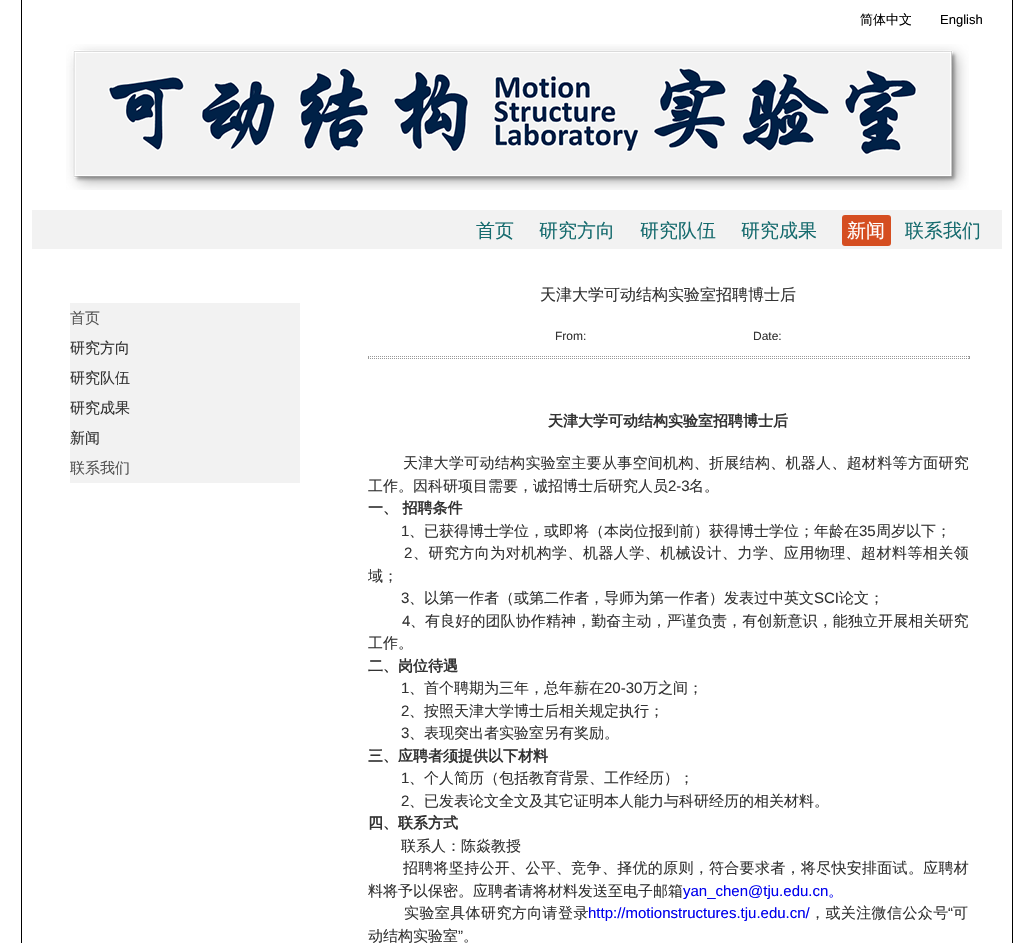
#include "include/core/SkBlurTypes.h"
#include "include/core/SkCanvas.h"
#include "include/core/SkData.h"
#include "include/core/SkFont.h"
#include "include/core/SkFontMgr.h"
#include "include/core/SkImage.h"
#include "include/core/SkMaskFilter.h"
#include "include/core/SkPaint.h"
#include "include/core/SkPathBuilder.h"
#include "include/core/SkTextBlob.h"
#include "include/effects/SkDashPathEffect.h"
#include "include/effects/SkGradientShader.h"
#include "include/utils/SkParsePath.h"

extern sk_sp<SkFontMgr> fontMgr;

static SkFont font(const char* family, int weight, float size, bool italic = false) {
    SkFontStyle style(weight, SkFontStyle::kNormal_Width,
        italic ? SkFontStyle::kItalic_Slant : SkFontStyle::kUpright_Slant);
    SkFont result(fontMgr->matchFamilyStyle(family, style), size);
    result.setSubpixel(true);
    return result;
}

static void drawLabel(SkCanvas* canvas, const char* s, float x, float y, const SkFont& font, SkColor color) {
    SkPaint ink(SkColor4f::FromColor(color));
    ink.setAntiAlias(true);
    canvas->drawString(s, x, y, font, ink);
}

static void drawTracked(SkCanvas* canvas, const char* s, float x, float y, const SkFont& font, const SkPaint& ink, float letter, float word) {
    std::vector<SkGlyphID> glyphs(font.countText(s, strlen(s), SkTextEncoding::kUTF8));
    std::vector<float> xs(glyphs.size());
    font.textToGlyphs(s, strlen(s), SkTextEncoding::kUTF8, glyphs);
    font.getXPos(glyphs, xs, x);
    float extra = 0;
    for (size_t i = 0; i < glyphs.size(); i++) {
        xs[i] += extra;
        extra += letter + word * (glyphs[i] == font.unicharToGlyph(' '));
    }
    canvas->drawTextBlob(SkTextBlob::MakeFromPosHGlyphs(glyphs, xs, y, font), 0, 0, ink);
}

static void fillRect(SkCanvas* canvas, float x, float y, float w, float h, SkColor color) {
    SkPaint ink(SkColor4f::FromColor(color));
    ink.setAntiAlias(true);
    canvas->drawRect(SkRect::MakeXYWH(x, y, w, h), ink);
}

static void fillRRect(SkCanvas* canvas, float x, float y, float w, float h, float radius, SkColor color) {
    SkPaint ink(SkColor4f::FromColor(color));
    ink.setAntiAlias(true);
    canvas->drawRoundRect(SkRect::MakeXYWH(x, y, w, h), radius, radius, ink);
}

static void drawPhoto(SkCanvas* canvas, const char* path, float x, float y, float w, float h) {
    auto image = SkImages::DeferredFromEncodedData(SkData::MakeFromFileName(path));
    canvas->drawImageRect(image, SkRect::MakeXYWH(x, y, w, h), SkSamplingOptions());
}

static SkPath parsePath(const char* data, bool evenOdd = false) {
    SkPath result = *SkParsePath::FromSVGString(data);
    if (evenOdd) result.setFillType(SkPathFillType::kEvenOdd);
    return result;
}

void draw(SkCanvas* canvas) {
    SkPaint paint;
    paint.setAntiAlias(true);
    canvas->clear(0xFFFFFFFF);
    fillRect(canvas, 1012, 0, 1, 943, 0xFF000000);
    fillRect(canvas, 21, 0, 1, 943, 0xFF000000);
    drawPhoto(canvas, "assets/img1.png", 66, 44, 903, 146);
    SkFont font1 = font("WenQuanYi Zen Hei", 500, 13);
    drawLabel(canvas, "简体中文", 860, 24, font1, 0xFF000000);
    SkFont font2 = font("Liberation Sans", 400, 13);
    drawLabel(canvas, "English", 940, 24, font2, 0xFF000000);
    fillRect(canvas, 32, 210, 970, 39, 0xFFF2F2F2);
    SkFont font3 = font("WenQuanYi Zen Hei", 500, 19);
    drawLabel(canvas, "首页", 476, 237, font3, 0xFF166B6E);
    drawLabel(canvas, "研究方向", 539, 237, font3, 0xFF166B6E);
    drawLabel(canvas, "研究队伍", 640, 237, font3, 0xFF166B6E);
    drawLabel(canvas, "研究成果", 741, 237, font3, 0xFF166B6E);
    fillRRect(canvas, 842, 215, 49, 31, 3, 0xFFD54E21);
    drawLabel(canvas, "新闻", 847, 237, font3, 0xFFFFFFFF);
    drawLabel(canvas, "联系我们", 905, 237, font3, 0xFF166B6E);
    fillRect(canvas, 70, 303, 230, 180, 0xFFF2F2F2);
    SkFont font4 = font("WenQuanYi Zen Hei", 500, 15);
    drawLabel(canvas, "首页", 70, 323, font4, 0xFF555555);
    drawLabel(canvas, "研究方向", 70, 353, font4, 0xFF333333);
    drawLabel(canvas, "研究队伍", 70, 383, font4, 0xFF333333);
    drawLabel(canvas, "研究成果", 70, 413, font4, 0xFF333333);
    drawLabel(canvas, "新闻", 70, 443, font4, 0xFF333333);
    drawLabel(canvas, "联系我们", 70, 473, font4, 0xFF555555);
    SkFont font5 = font("WenQuanYi Zen Hei", 500, 16);
    drawLabel(canvas, "天津大学可动结构实验室招聘博士后", 540, 300, font5, 0xFF333333);
    SkFont font6 = font("Liberation Sans", 400, 12);
    drawLabel(canvas, "From:", 555, 340, font6, 0xFF333333);
    drawLabel(canvas, "Date:", 753, 340, font6, 0xFF333333);
    paint.setStroke(true);
    paint.setStrokeWidth(1);
    paint.setColor(0xFF999999);
    paint.setPathEffect(SkDashPathEffect::Make({{1, 1}}, 0));
    canvas->drawPath(parsePath("M368 356.5H970"), paint);
    paint.setPathEffect(nullptr);
    fillRect(canvas, 969, 356, 1, 3, 0xFF999999);
    paint.setPathEffect(SkDashPathEffect::Make({{1, 1}}, 0));
    canvas->drawPath(parsePath("M368 358.5H970"), paint);
    paint.setPathEffect(nullptr);
    fillRect(canvas, 368, 356, 1, 3, 0xFF999999);
    SkFont font7 = font("WenQuanYi Zen Hei", 700, 15);
    drawLabel(canvas, "天津大学可动结构实验室招聘博士后", 548, 426, font7, 0xFF333333);
    paint.setStroke(false);
    paint.setColor(0xFF333333);
    drawTracked(canvas, "天津大学可动结构实验室主要从事空间机构、折展结构、机器人、超材料等方面研究", 403, 468, font4, paint, 0.3f, 0);
    drawLabel(canvas, "工作。因科研项目需要，诚招博士后研究人员", 368, 491, font4, 0xFF333333);
    SkFont font8 = font("Liberation Sans", 400, 15);
    drawLabel(canvas, "2-3", 668, 491, font8, 0xFF333333);
    drawLabel(canvas, "名。", 689, 491, font4, 0xFF333333);
    drawLabel(canvas, "一、 招聘条件", 368, 513, font7, 0xFF333333);
    drawLabel(canvas, "1", 401, 536, font8, 0xFF333333);
    drawLabel(canvas, "、已获得博士学位，或即将（本岗位报到前）获得博士学位；年龄在", 409, 536, font4, 0xFF333333);
    drawLabel(canvas, "35", 859, 536, font8, 0xFF333333);
    drawLabel(canvas, "周岁以下；", 876, 536, font4, 0xFF333333);
    drawTracked(canvas, "2", 404, 558, font8, paint, 0.45f, 0);
    drawTracked(canvas, "、研究方向为对机构学、机器人学、机械设计、力学、应用物理、超材料等相关领", 413, 558, font4, paint, 0.45f, 0);
    drawLabel(canvas, "域；", 368, 581, font4, 0xFF333333);
    drawLabel(canvas, "3", 401, 603, font8, 0xFF333333);
    drawLabel(canvas, "、以第一作者（或第二作者，导师为第一作者）发表过中英文", 409, 603, font4, 0xFF333333);
    drawLabel(canvas, "SCI", 814, 603, font8, 0xFF333333);
    drawLabel(canvas, "论文；", 839, 603, font4, 0xFF333333);
    drawTracked(canvas, "4", 402, 626, font8, paint, 0.1f, 0);
    drawTracked(canvas, "、有良好的团队协作精神，勤奋主动，严谨负责，有创新意识，能独立开展相关研究", 410, 626, font4, paint, 0.1f, 0);
    drawLabel(canvas, "工作。", 368, 648, font4, 0xFF333333);
    drawLabel(canvas, "二、岗位待遇", 368, 671, font7, 0xFF333333);
    drawLabel(canvas, "1", 401, 693, font8, 0xFF333333);
    drawLabel(canvas, "、首个聘期为三年，总年薪在", 409, 693, font4, 0xFF333333);
    drawLabel(canvas, "20-30", 604, 693, font8, 0xFF333333);
    drawLabel(canvas, "万之间；", 643, 693, font4, 0xFF333333);
    drawLabel(canvas, "2", 401, 716, font8, 0xFF333333);
    drawLabel(canvas, "、按照天津大学博士后相关规定执行；", 409, 716, font4, 0xFF333333);
    drawLabel(canvas, "3", 401, 738, font8, 0xFF333333);
    drawLabel(canvas, "、表现突出者实验室另有奖励。", 409, 738, font4, 0xFF333333);
    drawLabel(canvas, "三、应聘者须提供以下材料", 368, 761, font7, 0xFF333333);
    drawLabel(canvas, "1", 401, 783, font8, 0xFF333333);
    drawLabel(canvas, "、个人简历（包括教育背景、工作经历）；", 409, 783, font4, 0xFF333333);
    drawLabel(canvas, "2", 401, 806, font8, 0xFF333333);
    drawLabel(canvas, "、已发表论文全文及其它证明本人能力与科研经历的相关材料。", 409, 806, font4, 0xFF333333);
    drawLabel(canvas, "四、联系方式", 368, 828, font7, 0xFF333333);
    drawLabel(canvas, "联系人：陈焱教授", 401, 851, font4, 0xFF333333);
    drawTracked(canvas, "招聘将坚持公开、公平、竞争、择优的原则，符合要求者，将尽快安排面试。应聘材", 403, 873, font4, paint, 0.3f, 0);
    drawLabel(canvas, "料将予以保密。应聘者请将材料发送至电子邮箱", 368, 896, font4, 0xFF333333);
    drawLabel(canvas, "yan_chen@tju.edu.cn", 683, 896, font8, 0xFF0000EE);
    drawLabel(canvas, "。", 828, 896, font4, 0xFF0000EE);
    drawTracked(canvas, "实验室具体研究方向请登录", 404, 918, font4, paint, 0.4f, 0);
    drawLabel(canvas, "http://motionstructures.tju.edu.cn/", 588, 918, font8, 0xFF0000EE);
    drawTracked(canvas, "，或关注微信公众号", 810, 918, font4, paint, 0.4f, 0);
    drawTracked(canvas, "“", 948, 918, font8, paint, 0.4f, 0);
    drawTracked(canvas, "可", 953, 918, font4, paint, 0.4f, 0);
    drawLabel(canvas, "动结构实验室", 368, 941, font4, 0xFF333333);
    drawLabel(canvas, "”", 458, 941, font8, 0xFF333333);
    drawLabel(canvas, "。", 463, 941, font4, 0xFF333333);
}
